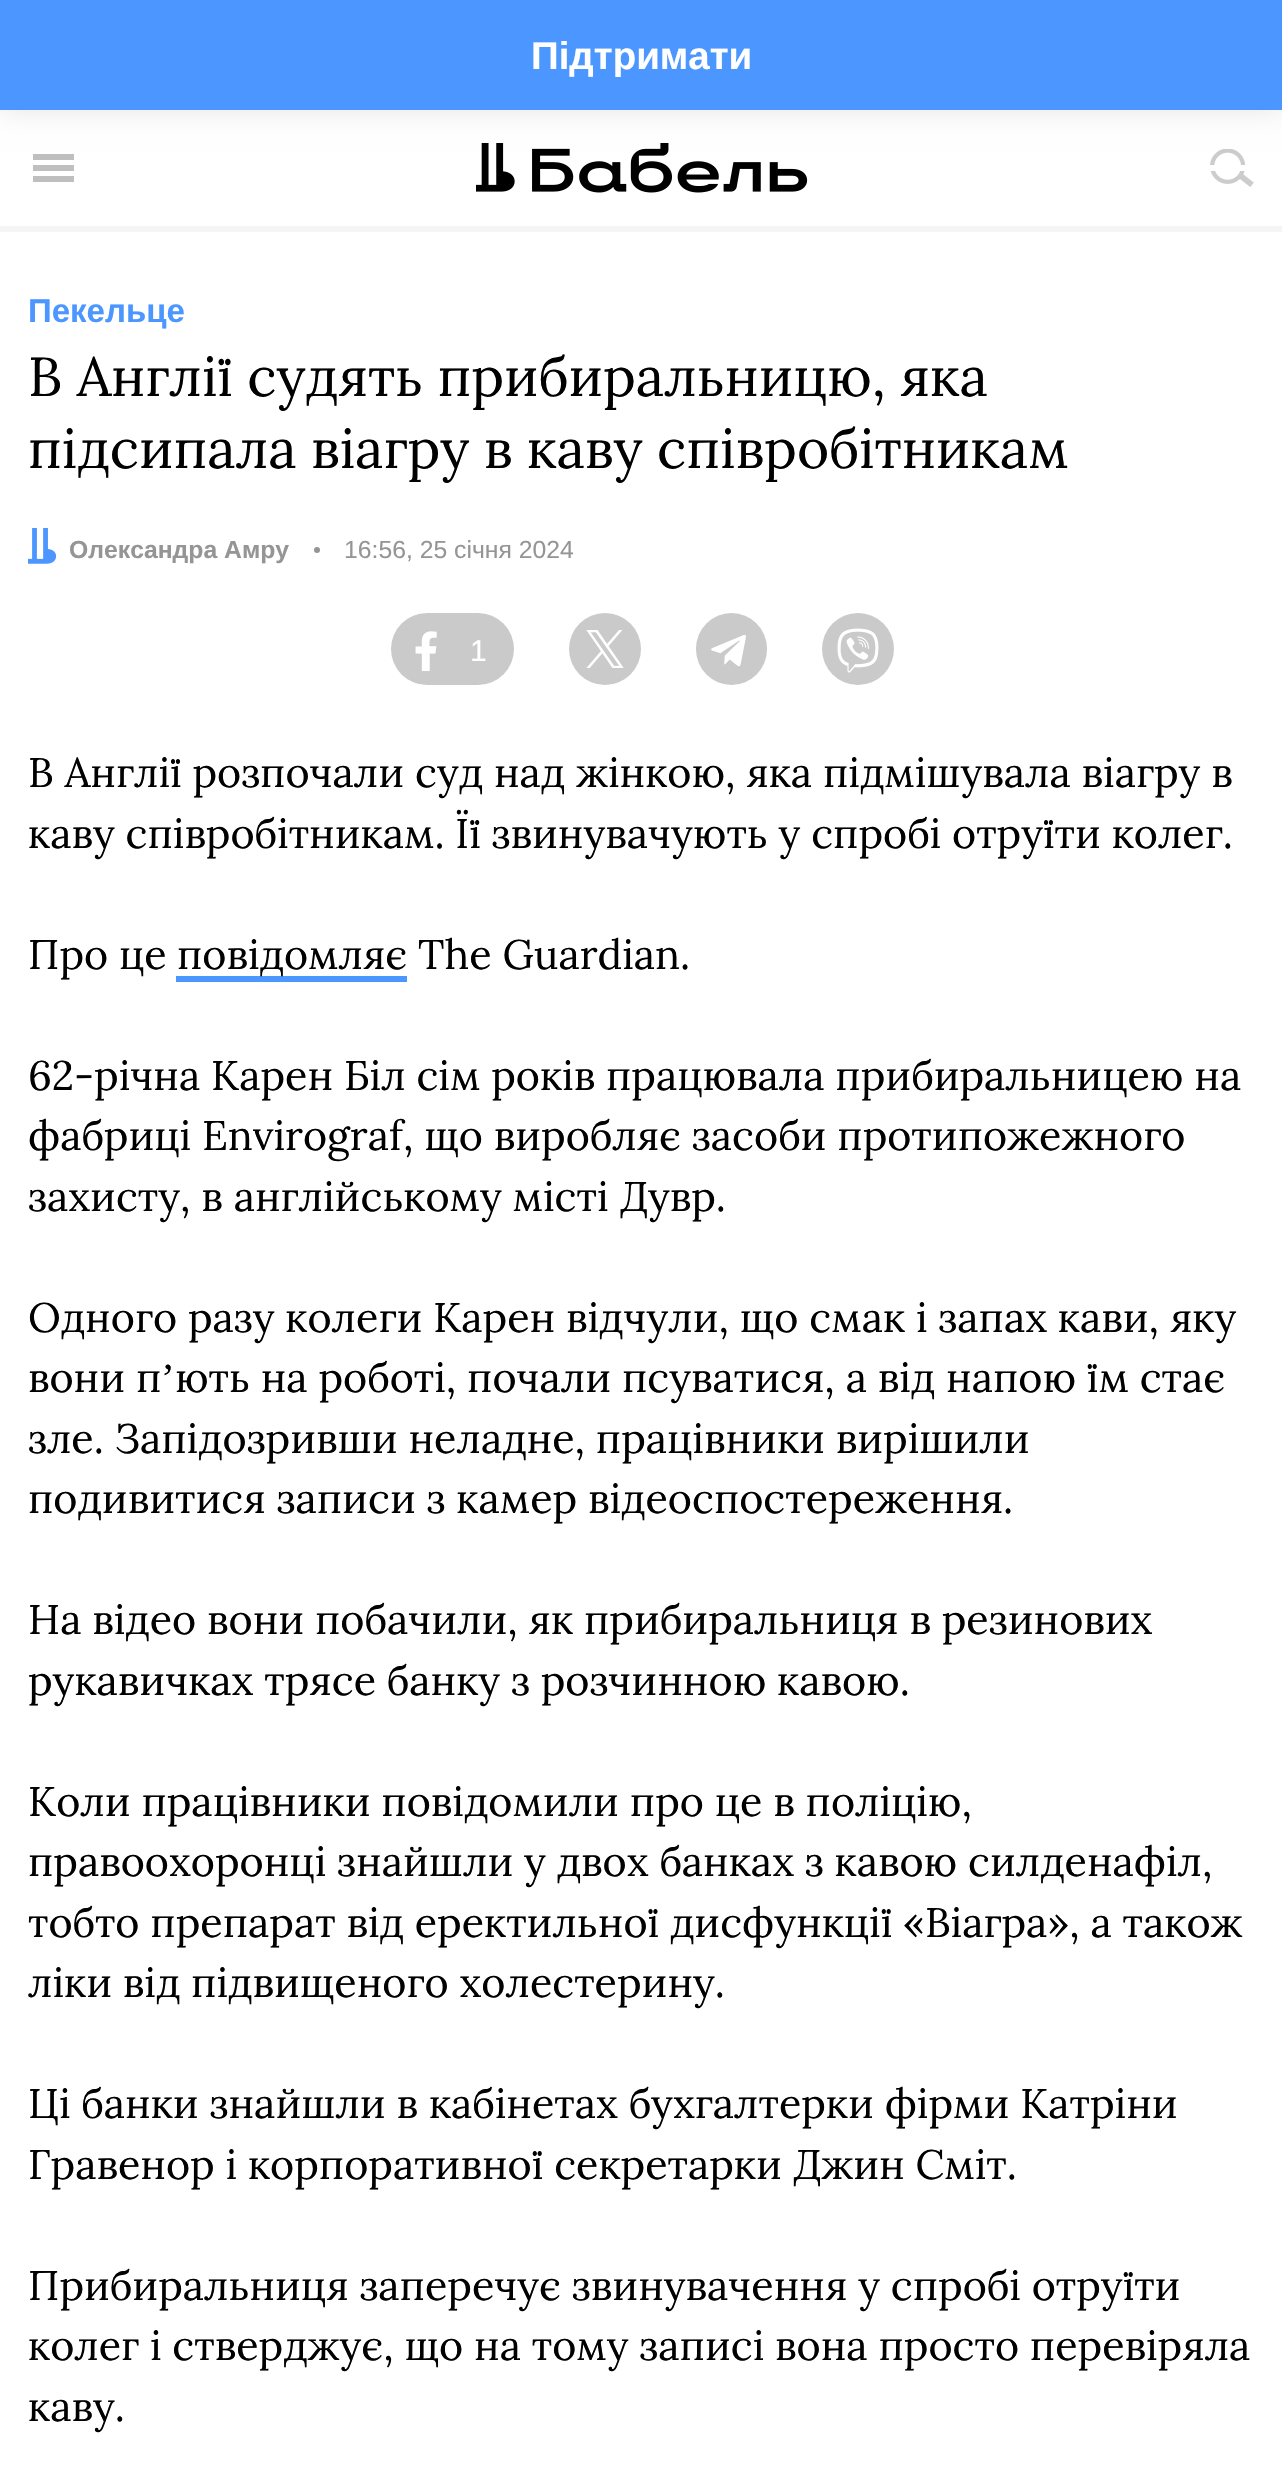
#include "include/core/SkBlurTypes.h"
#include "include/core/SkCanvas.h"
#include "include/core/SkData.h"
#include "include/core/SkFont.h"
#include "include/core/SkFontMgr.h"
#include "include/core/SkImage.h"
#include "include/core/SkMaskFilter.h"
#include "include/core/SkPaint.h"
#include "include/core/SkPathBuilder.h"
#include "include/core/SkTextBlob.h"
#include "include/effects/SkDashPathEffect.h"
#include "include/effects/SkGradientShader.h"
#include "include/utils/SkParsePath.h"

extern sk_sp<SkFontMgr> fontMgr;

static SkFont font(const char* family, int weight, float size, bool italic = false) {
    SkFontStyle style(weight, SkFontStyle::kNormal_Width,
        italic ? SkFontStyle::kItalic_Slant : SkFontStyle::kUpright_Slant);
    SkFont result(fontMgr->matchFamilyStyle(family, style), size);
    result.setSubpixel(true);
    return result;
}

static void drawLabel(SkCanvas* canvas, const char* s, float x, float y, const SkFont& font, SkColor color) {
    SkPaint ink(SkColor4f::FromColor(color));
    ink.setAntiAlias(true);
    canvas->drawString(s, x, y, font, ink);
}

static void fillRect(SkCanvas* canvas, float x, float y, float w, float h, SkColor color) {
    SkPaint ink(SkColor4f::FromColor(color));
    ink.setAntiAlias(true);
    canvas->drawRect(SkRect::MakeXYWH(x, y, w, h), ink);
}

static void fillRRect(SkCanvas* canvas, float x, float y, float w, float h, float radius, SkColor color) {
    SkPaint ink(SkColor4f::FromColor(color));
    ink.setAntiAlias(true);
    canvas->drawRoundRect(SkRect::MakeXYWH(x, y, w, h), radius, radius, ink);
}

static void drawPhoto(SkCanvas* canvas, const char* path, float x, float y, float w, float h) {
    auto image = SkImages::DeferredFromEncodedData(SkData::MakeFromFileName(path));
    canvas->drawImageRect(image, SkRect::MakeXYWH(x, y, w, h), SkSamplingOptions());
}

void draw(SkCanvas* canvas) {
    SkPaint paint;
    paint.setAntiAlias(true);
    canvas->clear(0xFFFFFFFF);
    fillRect(canvas, 0, 226, 1282, 6, 0xFFF5F5F5);
    paint.setColor(0x1A000000);
    paint.setMaskFilter(SkMaskFilter::MakeBlur(kNormal_SkBlurStyle, 14));
    canvas->drawRect(SkRect::MakeXYWH(0, 0, 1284, 110), paint);
    paint.setMaskFilter(nullptr);
    fillRect(canvas, 0, 0, 1282, 110, 0xFF4B96FF);
    SkFont font1 = font("Liberation Sans", 700, 38.5f);
    drawLabel(canvas, "Підтримати", 531, 69, font1, 0xFFFFFFFF);
    fillRect(canvas, 33, 154, 41, 6, 0xFFBFBFBF);
    fillRect(canvas, 33, 176, 41, 6, 0xFFBFBFBF);
    fillRect(canvas, 33, 165, 41, 6, 0xFFBFBFBF);
    drawPhoto(canvas, "assets/img1.png", 476, 143, 332, 50);
    drawPhoto(canvas, "assets/img2.png", 1210, 149, 44, 38);
    fillRect(canvas, 1210, 165, 41, 6, 0xFFFFFFFF);
    SkFont font2 = font("Liberation Sans", 700, 33);
    drawLabel(canvas, "Пекельце", 28, 322, font2, 0xFF4B96FF);
    SkFont font3 = font("Lora", 400, 55);
    drawLabel(canvas, "В Англії судять прибиральницю, яка", 28, 396, font3, 0xFF000000);
    drawLabel(canvas, "підсипала віагру в каву співробітникам", 28, 468, font3, 0xFF000000);
    drawPhoto(canvas, "assets/img3.png", 28, 528, 29, 36);
    SkFont font4 = font("Liberation Sans", 700, 24.75f);
    drawLabel(canvas, "Олександра Амру", 69, 558, font4, 0xFF959595);
    paint.setColor(0xFF959595);
    canvas->drawCircle(317, 550, 3, paint);
    SkFont font5 = font("Liberation Sans", 400, 24.75f);
    drawLabel(canvas, "16:56, 25 січня 2024", 344, 558, font5, 0xFF959595);
    fillRRect(canvas, 391, 613, 123, 72, 36, 0xFFCACACA);
    drawPhoto(canvas, "assets/img4.png", 415, 631, 22, 40);
    SkFont font6 = font("Liberation Sans", 400, 30);
    drawLabel(canvas, "1", 470, 661, font6, 0xFFFFFFFF);
    paint.setColor(0xFFCACACA);
    canvas->drawCircle(605, 649, 36, paint);
    drawPhoto(canvas, "assets/img5.png", 586, 630, 38, 38);
    fillRRect(canvas, 696, 613, 71, 72, 35.5f, 0xFFCACACA);
    drawPhoto(canvas, "assets/img6.png", 711, 634, 35, 33);
    canvas->drawCircle(858, 649, 36, paint);
    drawPhoto(canvas, "assets/img7.png", 837, 628, 42, 45);
    SkFont font7 = font("Lora", 400, 41.25f);
    drawLabel(canvas, "В Англії розпочали суд над жінкою, яка підмішувала віагру в", 28, 787, font7, 0xFF000000);
    drawLabel(canvas, "каву співробітникам. Її звинувачують у спробі отруїти колег.", 28, 848, font7, 0xFF000000);
    drawLabel(canvas, "Про це", 28, 969, font7, 0xFF000000);
    fillRect(canvas, 176, 976, 231, 6, 0xFF4B96FF);
    drawLabel(canvas, "повідомляє The Guardian.", 177, 969, font7, 0xFF000000);
    drawLabel(canvas, "62-річна Карен Біл сім років працювала прибиральницею на", 28, 1090, font7, 0xFF000000);
    drawLabel(canvas, "фабриці Envirograf, що виробляє засоби протипожежного", 28, 1150, font7, 0xFF000000);
    drawLabel(canvas, "захисту, в англійському місті Дувр.", 28, 1211, font7, 0xFF000000);
    drawLabel(canvas, "Одного разу колеги Карен відчули, що смак і запах кави, яку", 28, 1332, font7, 0xFF000000);
    drawLabel(canvas, "вони п", 28, 1392, font7, 0xFF000000);
    SkFont font8 = font("Liberation Serif", 400, 41.25f);
    drawLabel(canvas, "ʼ", 161, 1392, font8, 0xFF000000);
    drawLabel(canvas, "ють на роботі, почали псуватися, а від напою їм стає", 175, 1392, font7, 0xFF000000);
    drawLabel(canvas, "зле. Запідозривши неладне, працівники вирішили", 28, 1453, font7, 0xFF000000);
    drawLabel(canvas, "подивитися записи з камер відеоспостереження.", 28, 1513, font7, 0xFF000000);
    drawLabel(canvas, "На відео вони побачили, як прибиральниця в резинових", 28, 1634, font7, 0xFF000000);
    drawLabel(canvas, "рукавичках трясе банку з розчинною кавою.", 28, 1695, font7, 0xFF000000);
    drawLabel(canvas, "Коли працівники повідомили про це в поліцію,", 28, 1816, font7, 0xFF000000);
    drawLabel(canvas, "правоохоронці знайшли у двох банках з кавою силденафіл,", 28, 1876, font7, 0xFF000000);
    drawLabel(canvas, "тобто препарат від еректильної дисфункції «Віагра», а також", 28, 1937, font7, 0xFF000000);
    drawLabel(canvas, "ліки від підвищеного холестерину.", 28, 1997, font7, 0xFF000000);
    drawLabel(canvas, "Ці банки знайшли в кабінетах бухгалтерки фірми Катріни", 28, 2118, font7, 0xFF000000);
    drawLabel(canvas, "Гравенор і корпоративної секретарки Джин Сміт.", 28, 2179, font7, 0xFF000000);
    drawLabel(canvas, "Прибиральниця заперечує звинувачення у спробі отруїти", 28, 2300, font7, 0xFF000000);
    drawLabel(canvas, "колег і стверджує, що на тому записі вона просто перевіряла", 28, 2360, font7, 0xFF000000);
    drawLabel(canvas, "каву.", 28, 2421, font7, 0xFF000000);
}
